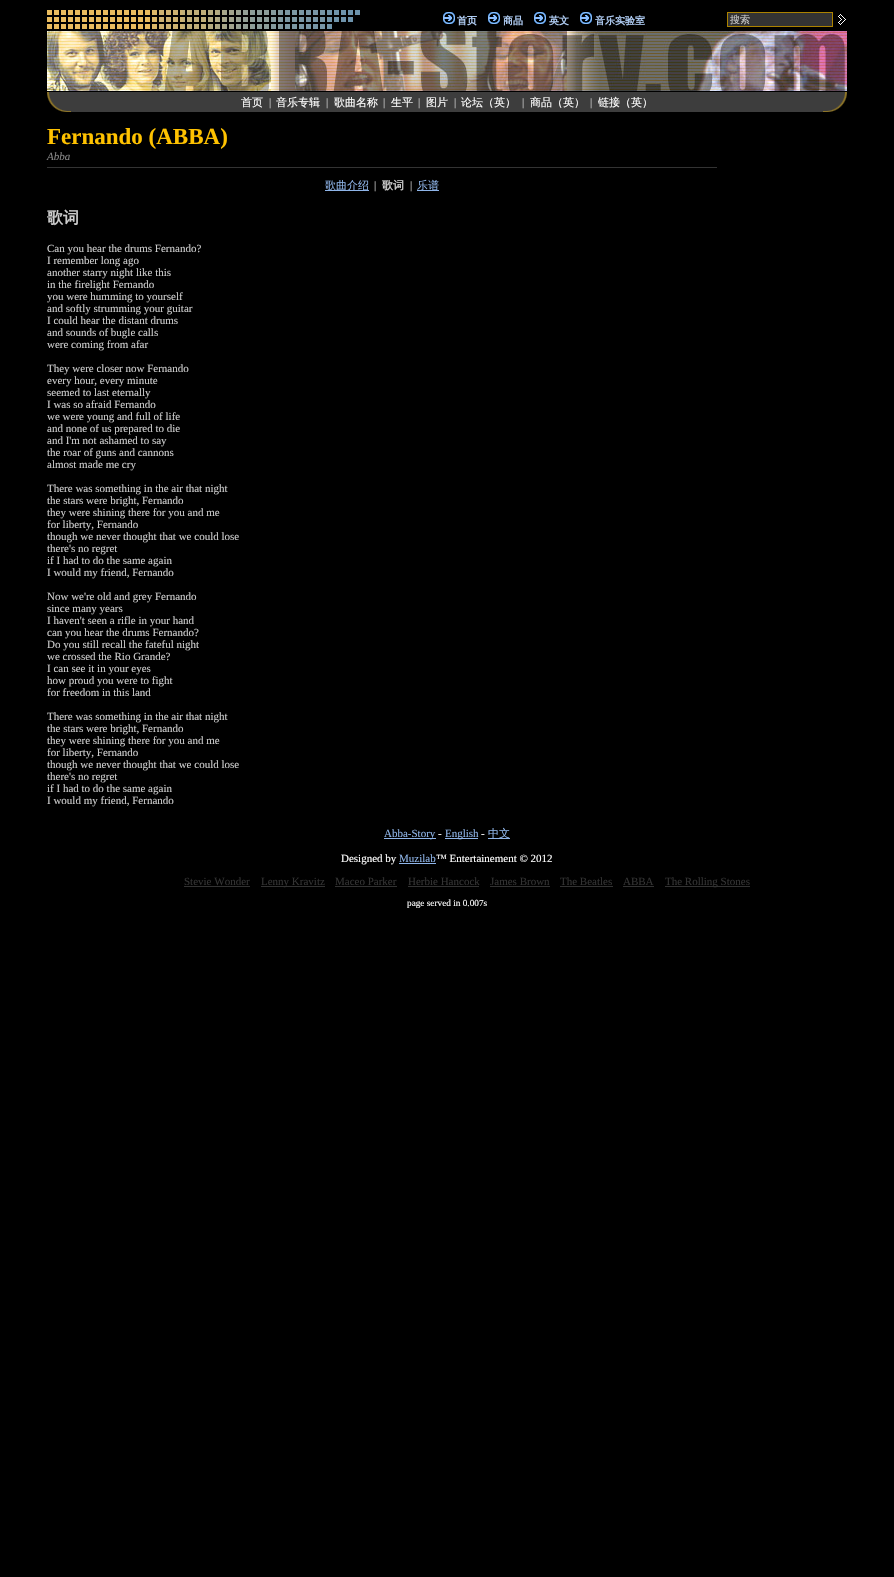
#include "include/core/SkBlurTypes.h"
#include "include/core/SkCanvas.h"
#include "include/core/SkData.h"
#include "include/core/SkFont.h"
#include "include/core/SkFontMgr.h"
#include "include/core/SkImage.h"
#include "include/core/SkMaskFilter.h"
#include "include/core/SkPaint.h"
#include "include/core/SkPathBuilder.h"
#include "include/core/SkTextBlob.h"
#include "include/effects/SkDashPathEffect.h"
#include "include/effects/SkGradientShader.h"
#include "include/utils/SkParsePath.h"

extern sk_sp<SkFontMgr> fontMgr;

static SkFont font(const char* family, int weight, float size, bool italic = false) {
    SkFontStyle style(weight, SkFontStyle::kNormal_Width,
        italic ? SkFontStyle::kItalic_Slant : SkFontStyle::kUpright_Slant);
    SkFont result(fontMgr->matchFamilyStyle(family, style), size);
    result.setSubpixel(true);
    return result;
}

static void drawLabel(SkCanvas* canvas, const char* s, float x, float y, const SkFont& font, SkColor color) {
    SkPaint ink(SkColor4f::FromColor(color));
    ink.setAntiAlias(true);
    canvas->drawString(s, x, y, font, ink);
}

static void fillRect(SkCanvas* canvas, float x, float y, float w, float h, SkColor color) {
    SkPaint ink(SkColor4f::FromColor(color));
    ink.setAntiAlias(true);
    canvas->drawRect(SkRect::MakeXYWH(x, y, w, h), ink);
}

static void drawPhoto(SkCanvas* canvas, const char* path, float x, float y, float w, float h) {
    auto image = SkImages::DeferredFromEncodedData(SkData::MakeFromFileName(path));
    canvas->drawImageRect(image, SkRect::MakeXYWH(x, y, w, h), SkSamplingOptions());
}

void draw(SkCanvas* canvas) {
    SkPaint paint;
    paint.setAntiAlias(true);
    canvas->clear(0xFF000000);
    drawPhoto(canvas, "assets/img1.png", 47, 10, 313, 19);
    drawPhoto(canvas, "assets/img2.png", 443, 12, 12, 12);
    SkFont font1 = font("WenQuanYi Zen Hei", 700, 10);
    drawLabel(canvas, "首页", 457, 24, font1, 0xFFB0CDF4);
    drawPhoto(canvas, "assets/img2.png", 488, 12, 12, 12);
    drawLabel(canvas, "商品", 503, 24, font1, 0xFFB0CDF4);
    drawPhoto(canvas, "assets/img2.png", 534, 12, 12, 12);
    drawLabel(canvas, "英文", 549, 24, font1, 0xFFB0CDF4);
    drawPhoto(canvas, "assets/img2.png", 580, 12, 12, 12);
    drawLabel(canvas, "音乐实验室", 595, 24, font1, 0xFFB0CDF4);
    paint.setColor(0xFF333333);
    canvas->drawRect(SkRect::MakeXYWH(727.5f, 12.5f, 105, 14), paint);
    paint.setStroke(true);
    paint.setStrokeWidth(1);
    paint.setColor(0xFFAB8200);
    canvas->drawRect(SkRect::MakeXYWH(727.5f, 12.5f, 105, 14), paint);
    SkFont font2 = font("WenQuanYi Zen Hei", 500, 10);
    drawLabel(canvas, "搜索", 730, 23, font2, 0xFFCCCCCC);
    drawPhoto(canvas, "assets/img3.png", 838, 14, 8, 11);
    drawPhoto(canvas, "assets/img4.png", 47, 31, 800, 60);
    drawPhoto(canvas, "assets/img5.png", 47, 92, 24, 20);
    fillRect(canvas, 71, 92, 752, 20, 0xFF3D3D3D);
    SkFont font3 = font("WenQuanYi Zen Hei", 500, 11);
    drawLabel(canvas, "首页", 241, 106, font3, 0xFFFFFFFF);
    SkFont font4 = font("Liberation Serif", 400, 11);
    drawLabel(canvas, "|", 269, 106, font4, 0xFFCCCCCC);
    drawLabel(canvas, "音乐专辑", 276, 106, font3, 0xFFFFFFFF);
    drawLabel(canvas, "|", 326, 106, font4, 0xFFCCCCCC);
    drawLabel(canvas, "歌曲名称", 334, 106, font3, 0xFFFFFFFF);
    drawLabel(canvas, "|", 383, 106, font4, 0xFFCCCCCC);
    drawLabel(canvas, "生平", 391, 106, font3, 0xFFFFFFFF);
    drawLabel(canvas, "|", 418, 106, font4, 0xFFCCCCCC);
    drawLabel(canvas, "图片", 426, 106, font3, 0xFFFFFFFF);
    drawLabel(canvas, "|", 454, 106, font4, 0xFFCCCCCC);
    drawLabel(canvas, "论坛（英）", 461, 106, font3, 0xFFFFFFFF);
    drawLabel(canvas, "|", 522, 106, font4, 0xFFCCCCCC);
    drawLabel(canvas, "商品（英）", 530, 106, font3, 0xFFFFFFFF);
    drawLabel(canvas, "|", 590, 106, font4, 0xFFCCCCCC);
    drawLabel(canvas, "链接（英）", 598, 106, font3, 0xFFFFFFFF);
    drawPhoto(canvas, "assets/img6.png", 823, 92, 24, 20);
    fillRect(canvas, 47, 167, 670, 1, 0xFF333333);
    SkFont font5 = font("Liberation Serif", 700, 23);
    drawLabel(canvas, "Fernando (ABBA)", 47, 144, font5, 0xFFFFC200);
    SkFont font6 = font("Liberation Serif", 400, 11, true);
    drawLabel(canvas, "Abba", 47, 160, font6, 0xFF888888);
    fillRect(canvas, 325, 190, 44, 1, 0xFF8FB5E9);
    drawLabel(canvas, "歌曲介绍", 325, 189, font3, 0xFF8FB5E9);
    drawLabel(canvas, "|", 374, 189, font4, 0xFFCCCCCC);
    SkFont font7 = font("WenQuanYi Zen Hei", 700, 11);
    drawLabel(canvas, "歌词", 382, 189, font7, 0xFFCCCCCC);
    drawLabel(canvas, "|", 410, 189, font4, 0xFFCCCCCC);
    fillRect(canvas, 417, 190, 22, 1, 0xFF8FB5E9);
    drawLabel(canvas, "乐谱", 417, 189, font3, 0xFF8FB5E9);
    SkFont font8 = font("WenQuanYi Zen Hei", 700, 16);
    drawLabel(canvas, "歌词", 47, 223, font8, 0xFFCCCCCC);
    drawLabel(canvas, "Can you hear the drums Fernando?", 47, 252, font4, 0xFFCCCCCC);
    drawLabel(canvas, "I remember long ago", 47, 264, font4, 0xFFCCCCCC);
    drawLabel(canvas, "another starry night like this", 47, 276, font4, 0xFFCCCCCC);
    drawLabel(canvas, "in the firelight Fernando", 47, 288, font4, 0xFFCCCCCC);
    drawLabel(canvas, "you were humming to yourself", 47, 300, font4, 0xFFCCCCCC);
    drawLabel(canvas, "and softly strumming your guitar", 47, 312, font4, 0xFFCCCCCC);
    drawLabel(canvas, "I could hear the distant drums", 47, 324, font4, 0xFFCCCCCC);
    drawLabel(canvas, "and sounds of bugle calls", 47, 336, font4, 0xFFCCCCCC);
    drawLabel(canvas, "were coming from afar", 47, 348, font4, 0xFFCCCCCC);
    drawLabel(canvas, "They were closer now Fernando", 47, 372, font4, 0xFFCCCCCC);
    drawLabel(canvas, "every hour, every minute", 47, 384, font4, 0xFFCCCCCC);
    drawLabel(canvas, "seemed to last eternally", 47, 396, font4, 0xFFCCCCCC);
    drawLabel(canvas, "I was so afraid Fernando", 47, 408, font4, 0xFFCCCCCC);
    drawLabel(canvas, "we were young and full of life", 47, 420, font4, 0xFFCCCCCC);
    drawLabel(canvas, "and none of us prepared to die", 47, 432, font4, 0xFFCCCCCC);
    drawLabel(canvas, "and I'm not ashamed to say", 47, 444, font4, 0xFFCCCCCC);
    drawLabel(canvas, "the roar of guns and cannons", 47, 456, font4, 0xFFCCCCCC);
    drawLabel(canvas, "almost made me cry", 47, 468, font4, 0xFFCCCCCC);
    drawLabel(canvas, "There was something in the air that night", 47, 492, font4, 0xFFCCCCCC);
    drawLabel(canvas, "the stars were bright, Fernando", 47, 504, font4, 0xFFCCCCCC);
    drawLabel(canvas, "they were shining there for you and me", 47, 516, font4, 0xFFCCCCCC);
    drawLabel(canvas, "for liberty, Fernando", 47, 528, font4, 0xFFCCCCCC);
    drawLabel(canvas, "though we never thought that we could lose", 47, 540, font4, 0xFFCCCCCC);
    drawLabel(canvas, "there's no regret", 47, 552, font4, 0xFFCCCCCC);
    drawLabel(canvas, "if I had to do the same again", 47, 564, font4, 0xFFCCCCCC);
    drawLabel(canvas, "I would my friend, Fernando", 47, 576, font4, 0xFFCCCCCC);
    drawLabel(canvas, "Now we're old and grey Fernando", 47, 600, font4, 0xFFCCCCCC);
    drawLabel(canvas, "since many years", 47, 612, font4, 0xFFCCCCCC);
    drawLabel(canvas, "I haven't seen a rifle in your hand", 47, 624, font4, 0xFFCCCCCC);
    drawLabel(canvas, "can you hear the drums Fernando?", 47, 636, font4, 0xFFCCCCCC);
    drawLabel(canvas, "Do you still recall the fateful night", 47, 648, font4, 0xFFCCCCCC);
    drawLabel(canvas, "we crossed the Rio Grande?", 47, 660, font4, 0xFFCCCCCC);
    drawLabel(canvas, "I can see it in your eyes", 47, 672, font4, 0xFFCCCCCC);
    drawLabel(canvas, "how proud you were to fight", 47, 684, font4, 0xFFCCCCCC);
    drawLabel(canvas, "for freedom in this land", 47, 696, font4, 0xFFCCCCCC);
    drawLabel(canvas, "There was something in the air that night", 47, 720, font4, 0xFFCCCCCC);
    drawLabel(canvas, "the stars were bright, Fernando", 47, 732, font4, 0xFFCCCCCC);
    drawLabel(canvas, "they were shining there for you and me", 47, 744, font4, 0xFFCCCCCC);
    drawLabel(canvas, "for liberty, Fernando", 47, 756, font4, 0xFFCCCCCC);
    drawLabel(canvas, "though we never thought that we could lose", 47, 768, font4, 0xFFCCCCCC);
    drawLabel(canvas, "there's no regret", 47, 780, font4, 0xFFCCCCCC);
    drawLabel(canvas, "if I had to do the same again", 47, 792, font4, 0xFFCCCCCC);
    drawLabel(canvas, "I would my friend, Fernando", 47, 804, font4, 0xFFCCCCCC);
    fillRect(canvas, 384, 838, 52, 1, 0xFF8FB5E9);
    drawLabel(canvas, "Abba-Story", 384, 837, font4, 0xFF8FB5E9);
    drawLabel(canvas, "-", 438, 837, font4, 0xFFFFFFFF);
    fillRect(canvas, 445, 838, 33, 1, 0xFF8FB5E9);
    drawLabel(canvas, "English", 445, 837, font4, 0xFF8FB5E9);
    drawLabel(canvas, "-", 481, 837, font4, 0xFFFFFFFF);
    fillRect(canvas, 488, 838, 22, 1, 0xFF8FB5E9);
    drawLabel(canvas, "中文", 488, 837, font3, 0xFF8FB5E9);
    drawLabel(canvas, "Designed by", 341, 862, font4, 0xFFFFFFFF);
    drawLabel(canvas, "Muzilab", 399, 862, font4, 0xFF8FB5E9);
    fillRect(canvas, 399, 863, 37, 1, 0xFF8FB5E9);
    drawLabel(canvas, "™ Entertainement © 2012", 436, 862, font4, 0xFFFFFFFF);
    drawLabel(canvas, "Stevie Wonder", 184, 885, font4, 0xFF333333);
    fillRect(canvas, 184, 886, 66, 1, 0xFF333333);
    fillRect(canvas, 261, 886, 64, 1, 0xFF333333);
    drawLabel(canvas, "Lenny Kravitz", 261, 885, font4, 0xFF333333);
    drawLabel(canvas, "Maceo Parker", 335, 885, font4, 0xFF333333);
    fillRect(canvas, 335, 886, 62, 1, 0xFF333333);
    drawLabel(canvas, "Herbie Hancock", 408, 885, font4, 0xFF333333);
    fillRect(canvas, 408, 886, 71, 1, 0xFF333333);
    drawLabel(canvas, "James Brown", 490, 885, font4, 0xFF333333);
    fillRect(canvas, 490, 886, 60, 1, 0xFF333333);
    drawLabel(canvas, "The Beatles", 560, 885, font4, 0xFF333333);
    fillRect(canvas, 560, 886, 53, 1, 0xFF333333);
    drawLabel(canvas, "ABBA", 623, 885, font4, 0xFF333333);
    fillRect(canvas, 623, 886, 31, 1, 0xFF333333);
    fillRect(canvas, 665, 886, 85, 1, 0xFF333333);
    drawLabel(canvas, "The Rolling Stones", 665, 885, font4, 0xFF333333);
    SkFont font9 = font("Liberation Serif", 400, 9.25f);
    drawLabel(canvas, "page served in 0.007s", 407, 906, font9, 0xFFFFFFFF);
}
